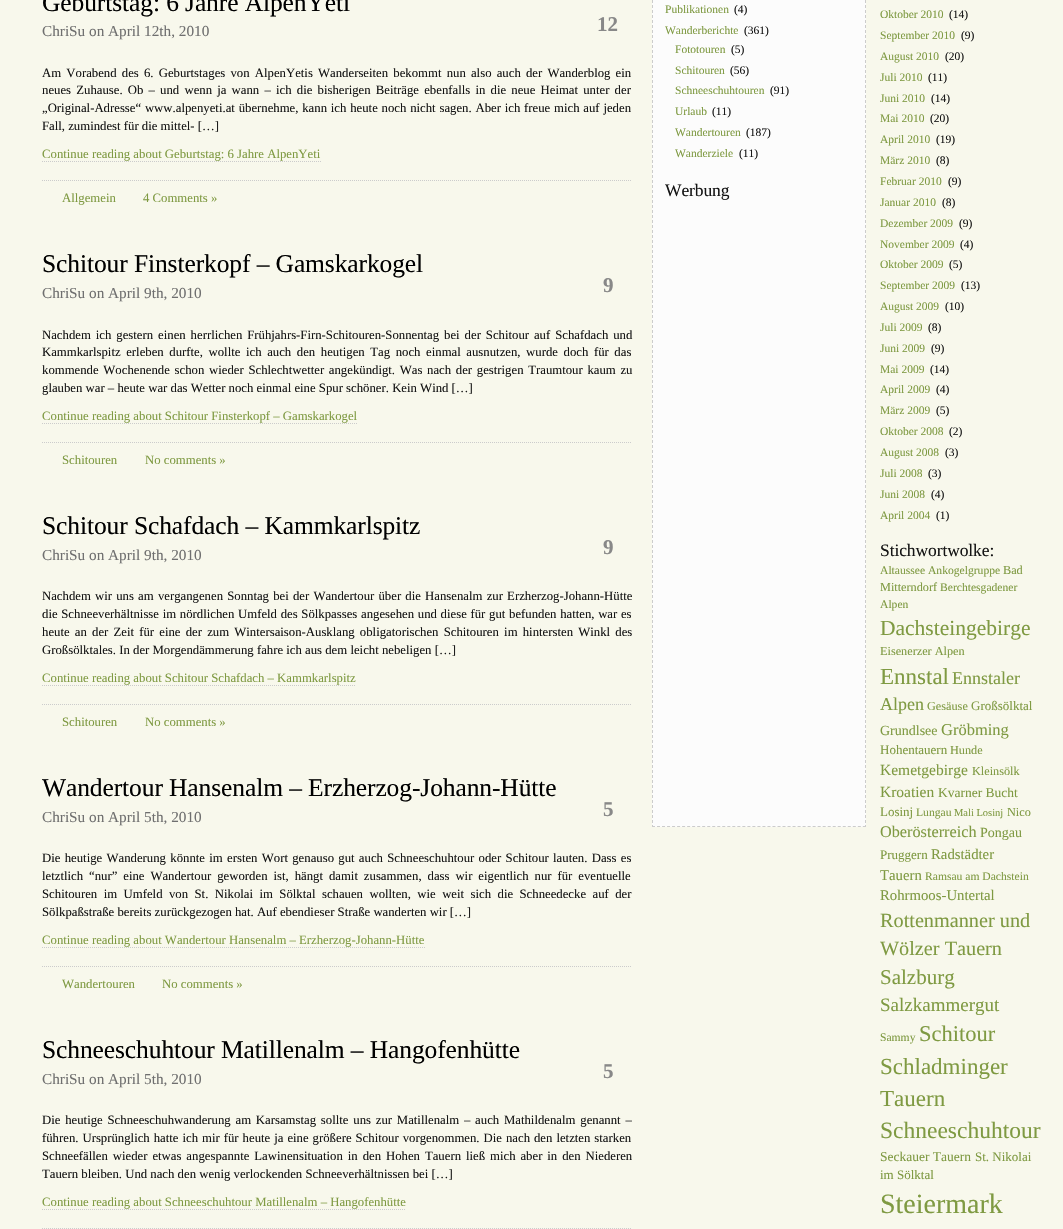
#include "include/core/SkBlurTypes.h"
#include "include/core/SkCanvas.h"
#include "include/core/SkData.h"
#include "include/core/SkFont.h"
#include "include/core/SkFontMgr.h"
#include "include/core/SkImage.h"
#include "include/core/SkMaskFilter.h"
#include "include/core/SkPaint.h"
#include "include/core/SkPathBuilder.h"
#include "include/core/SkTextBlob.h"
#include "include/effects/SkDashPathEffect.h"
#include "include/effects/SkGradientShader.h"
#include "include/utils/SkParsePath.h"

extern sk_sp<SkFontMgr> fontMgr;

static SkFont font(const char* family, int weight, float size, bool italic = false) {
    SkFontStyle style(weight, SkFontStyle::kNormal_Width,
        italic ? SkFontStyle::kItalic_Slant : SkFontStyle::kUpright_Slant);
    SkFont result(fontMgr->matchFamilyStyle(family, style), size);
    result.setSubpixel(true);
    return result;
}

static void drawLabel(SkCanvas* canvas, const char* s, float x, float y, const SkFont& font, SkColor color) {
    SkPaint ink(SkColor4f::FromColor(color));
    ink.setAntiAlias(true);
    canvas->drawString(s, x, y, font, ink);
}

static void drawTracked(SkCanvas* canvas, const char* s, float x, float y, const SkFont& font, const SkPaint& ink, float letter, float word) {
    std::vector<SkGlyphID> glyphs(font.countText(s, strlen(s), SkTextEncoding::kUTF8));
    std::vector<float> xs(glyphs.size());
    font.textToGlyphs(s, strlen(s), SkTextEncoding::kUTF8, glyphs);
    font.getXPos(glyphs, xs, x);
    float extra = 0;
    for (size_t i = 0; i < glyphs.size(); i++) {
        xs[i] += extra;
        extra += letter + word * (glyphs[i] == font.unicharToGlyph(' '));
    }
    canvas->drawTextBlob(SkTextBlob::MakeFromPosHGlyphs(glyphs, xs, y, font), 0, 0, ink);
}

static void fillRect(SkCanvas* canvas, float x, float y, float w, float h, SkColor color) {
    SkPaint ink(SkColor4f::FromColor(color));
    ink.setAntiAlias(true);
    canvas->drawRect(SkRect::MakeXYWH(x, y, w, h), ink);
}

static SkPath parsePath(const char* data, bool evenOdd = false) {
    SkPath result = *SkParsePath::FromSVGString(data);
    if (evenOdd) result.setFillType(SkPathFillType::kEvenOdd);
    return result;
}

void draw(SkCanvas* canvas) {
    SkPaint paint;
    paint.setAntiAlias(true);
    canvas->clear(0xFFF8F8EC);
    SkFont font1 = font("Liberation Serif", 400, 25.5f);
    paint.setColor(0xFF000000);
    drawTracked(canvas, "Geburtstag: 6 Jahre AlpenYeti", 42, 11, font1, paint, -0.1f, 0);
    SkFont font2 = font("Liberation Serif", 400, 15.25f);
    drawLabel(canvas, "ChriSu on April 12th, 2010", 42, 36, font2, 0xFF6F6F6F);
    SkFont font3 = font("Liberation Serif", 700, 21);
    drawLabel(canvas, "12", 597, 31, font3, 0xFF888888);
    SkFont font4 = font("Liberation Serif", 400, 12.75f);
    paint.setColor(0xFF151515);
    drawTracked(canvas, "Am Vorabend des 6. Geburtstages von AlpenYetis Wanderseiten bekommt nun also auch der Wanderblog ein", 42, 77, font4, paint, 0, 2);
    drawTracked(canvas, "neues Zuhause. Ob – und wenn ja wann – ich die bisherigen Beiträge ebenfalls in die neue Heimat unter der", 42, 94, font4, paint, 0, 2);
    drawTracked(canvas, "„Original-Adresse“ www.alpenyeti.at übernehme, kann ich heute noch nicht sagen. Aber ich freue mich auf jeden", 42, 112, font4, paint, 0, 0.6f);
    drawLabel(canvas, "Fall, zumindest für die mittel- […]", 42, 130, font4, 0xFF151515);
    drawLabel(canvas, "Continue reading about Geburtstag: 6 Jahre AlpenYeti", 42, 158, font4, 0xFF7F9A42);
    paint.setStroke(true);
    paint.setStrokeWidth(1);
    paint.setColor(0xFFCCCCCC);
    paint.setPathEffect(SkDashPathEffect::Make({{1, 1}}, 0));
    canvas->drawPath(parsePath("M42 161.5H321"), paint);
    paint.setPathEffect(nullptr);
    paint.setPathEffect(SkDashPathEffect::Make({{1, 1}}, 0));
    canvas->drawPath(parsePath("M42 180.5H632"), paint);
    paint.setPathEffect(nullptr);
    drawLabel(canvas, "Allgemein", 62, 202, font4, 0xFF7F9A42);
    drawLabel(canvas, "4 Comments »", 143, 202, font4, 0xFF7F9A42);
    paint.setStroke(false);
    paint.setColor(0xFF000000);
    drawTracked(canvas, "Schitour Finsterkopf – Gamskarkogel", 42, 272, font1, paint, -0.1f, 0);
    drawLabel(canvas, "9", 603, 292, font3, 0xFF888888);
    drawLabel(canvas, "ChriSu on April 9th, 2010", 42, 298, font2, 0xFF6F6F6F);
    paint.setColor(0xFF151515);
    drawTracked(canvas, "Nachdem ich gestern einen herrlichen Frühjahrs-Firn-Schitouren-Sonnentag bei der Schitour auf Schafdach und", 42, 339, font4, paint, 0, 1.75f);
    drawTracked(canvas, "Kammkarlspitz erleben durfte, wollte ich auch den heutigen Tag noch einmal ausnutzen, wurde doch für das", 42, 356, font4, paint, 0, 2.4f);
    drawTracked(canvas, "kommende Wochenende schon wieder Schlechtwetter angekündigt. Was nach der gestrigen Traumtour kaum zu", 42, 374, font4, paint, 0, 1.5f);
    drawLabel(canvas, "glauben war – heute war das Wetter noch einmal eine Spur schöner. Kein Wind […]", 42, 392, font4, 0xFF151515);
    drawLabel(canvas, "Continue reading about Schitour Finsterkopf – Gamskarkogel", 42, 420, font4, 0xFF7F9A42);
    paint.setStroke(true);
    paint.setColor(0xFFCCCCCC);
    paint.setPathEffect(SkDashPathEffect::Make({{1, 1}}, 0));
    canvas->drawPath(parsePath("M42 423.5H357"), paint);
    paint.setPathEffect(nullptr);
    paint.setPathEffect(SkDashPathEffect::Make({{1, 1}}, 0));
    canvas->drawPath(parsePath("M42 442.5H632"), paint);
    paint.setPathEffect(nullptr);
    drawLabel(canvas, "Schitouren", 62, 464, font4, 0xFF7F9A42);
    drawLabel(canvas, "No comments »", 145, 464, font4, 0xFF7F9A42);
    paint.setStroke(false);
    paint.setColor(0xFF000000);
    drawTracked(canvas, "Schitour Schafdach – Kammkarlspitz", 42, 534, font1, paint, -0.1f, 0);
    drawLabel(canvas, "9", 603, 554, font3, 0xFF888888);
    drawLabel(canvas, "ChriSu on April 9th, 2010", 42, 560, font2, 0xFF6F6F6F);
    paint.setColor(0xFF151515);
    drawTracked(canvas, "Nachdem wir uns am vergangenen Sonntag bei der Wandertour über die Hansenalm zur Erzherzog-Johann-Hütte", 42, 600, font4, paint, 0, 1);
    drawTracked(canvas, "die Schneeverhältnisse im nördlichen Umfeld des Sölkpasses angesehen und diese für gut befunden hatten, war es", 42, 618, font4, paint, 0, 0.5f);
    drawTracked(canvas, "heute an der Zeit für eine der zum Wintersaison-Ausklang obligatorischen Schitouren im hintersten Winkl des", 42, 636, font4, paint, 0, 2);
    drawLabel(canvas, "Großsölktales. In der Morgendämmerung fahre ich aus dem leicht nebeligen […]", 42, 654, font4, 0xFF151515);
    drawLabel(canvas, "Continue reading about Schitour Schafdach – Kammkarlspitz", 42, 682, font4, 0xFF7F9A42);
    paint.setStroke(true);
    paint.setColor(0xFFCCCCCC);
    paint.setPathEffect(SkDashPathEffect::Make({{1, 1}}, 0));
    canvas->drawPath(parsePath("M42 685.5H356"), paint);
    paint.setPathEffect(nullptr);
    paint.setPathEffect(SkDashPathEffect::Make({{1, 1}}, 0));
    canvas->drawPath(parsePath("M42 704.5H632"), paint);
    paint.setPathEffect(nullptr);
    drawLabel(canvas, "Schitouren", 62, 726, font4, 0xFF7F9A42);
    drawLabel(canvas, "No comments »", 145, 726, font4, 0xFF7F9A42);
    paint.setStroke(false);
    paint.setColor(0xFF000000);
    drawTracked(canvas, "Wandertour Hansenalm – Erzherzog-Johann-Hütte", 42, 796, font1, paint, -0.1f, 0);
    drawLabel(canvas, "5", 603, 816, font3, 0xFF888888);
    drawLabel(canvas, "ChriSu on April 5th, 2010", 42, 822, font2, 0xFF6F6F6F);
    paint.setColor(0xFF151515);
    drawTracked(canvas, "Die heutige Wanderung könnte im ersten Wort genauso gut auch Schneeschuhtour oder Schitour lauten. Dass es", 42, 862, font4, paint, 0, 1.1f);
    drawTracked(canvas, "letztlich “nur” eine Wandertour geworden ist, hängt damit zusammen, dass wir eigentlich nur für eventuelle", 42, 880, font4, paint, 0, 2.75f);
    drawTracked(canvas, "Schitouren im Umfeld von St. Nikolai im Sölktal schauen wollten, wie weit sich die Schneedecke auf der", 42, 898, font4, paint, 0, 3.25f);
    drawLabel(canvas, "Sölkpaßstraße bereits zurückgezogen hat. Auf ebendieser Straße wanderten wir […]", 42, 916, font4, 0xFF151515);
    drawLabel(canvas, "Continue reading about Wandertour Hansenalm – Erzherzog-Johann-Hütte", 42, 944, font4, 0xFF7F9A42);
    paint.setStroke(true);
    paint.setColor(0xFFCCCCCC);
    paint.setPathEffect(SkDashPathEffect::Make({{1, 1}}, 0));
    canvas->drawPath(parsePath("M42 947.5H425"), paint);
    paint.setPathEffect(nullptr);
    paint.setPathEffect(SkDashPathEffect::Make({{1, 1}}, 0));
    canvas->drawPath(parsePath("M42 966.5H632"), paint);
    paint.setPathEffect(nullptr);
    drawLabel(canvas, "Wandertouren", 62, 988, font4, 0xFF7F9A42);
    drawLabel(canvas, "No comments »", 162, 988, font4, 0xFF7F9A42);
    paint.setStroke(false);
    paint.setColor(0xFF000000);
    drawTracked(canvas, "Schneeschuhtour Matillenalm – Hangofenhütte", 42, 1058, font1, paint, -0.1f, 0);
    drawLabel(canvas, "5", 603, 1078, font3, 0xFF888888);
    drawLabel(canvas, "ChriSu on April 5th, 2010", 42, 1084, font2, 0xFF6F6F6F);
    paint.setColor(0xFF151515);
    drawTracked(canvas, "Die heutige Schneeschuhwanderung am Karsamstag sollte uns zur Matillenalm – auch Mathildenalm genannt –", 42, 1124, font4, paint, 0, 1.6f);
    drawTracked(canvas, "führen. Ursprünglich hatte ich mir für heute ja eine größere Schitour vorgenommen. Die nach den letzten starken", 42, 1142, font4, paint, 0, 0.8f);
    drawTracked(canvas, "Schneefällen wieder etwas angespannte Lawinensituation in den Hohen Tauern ließ mich aber in den Niederen", 42, 1160, font4, paint, 0, 1.75f);
    drawLabel(canvas, "Tauern bleiben. Und nach den wenig verlockenden Schneeverhältnissen bei […]", 42, 1178, font4, 0xFF151515);
    drawLabel(canvas, "Continue reading about Schneeschuhtour Matillenalm – Hangofenhütte", 42, 1206, font4, 0xFF7F9A42);
    paint.setStroke(true);
    paint.setColor(0xFFCCCCCC);
    paint.setPathEffect(SkDashPathEffect::Make({{1, 1}}, 0));
    canvas->drawPath(parsePath("M42 1209.5H406"), paint);
    paint.setPathEffect(nullptr);
    paint.setPathEffect(SkDashPathEffect::Make({{1, 1}}, 0));
    canvas->drawPath(parsePath("M42 1228.5H632"), paint);
    paint.setPathEffect(nullptr);
    fillRect(canvas, 652, 0, 214, 827, 0xFFFCFCFC);
    paint.setPathEffect(SkDashPathEffect::Make({{3, 2}}, 0));
    canvas->drawPath(parsePath("M865.5-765V827"), paint);
    paint.setPathEffect(nullptr);
    paint.setPathEffect(SkDashPathEffect::Make({{3, 2.02f}}, 0));
    canvas->drawPath(parsePath("M652 826.5H866"), paint);
    paint.setPathEffect(nullptr);
    paint.setPathEffect(SkDashPathEffect::Make({{3, 2}}, 0));
    canvas->drawPath(parsePath("M652.5-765V827"), paint);
    paint.setPathEffect(nullptr);
    SkFont font5 = font("Liberation Serif", 400, 11.5f);
    drawLabel(canvas, "Publikationen", 665, 13, font5, 0xFF7F9A42);
    drawLabel(canvas, "(4)", 734, 13, font5, 0xFF151515);
    drawLabel(canvas, "Wanderberichte", 665, 34, font5, 0xFF7F9A42);
    drawLabel(canvas, "(361)", 744, 34, font5, 0xFF151515);
    drawLabel(canvas, "Fototouren", 675, 53, font5, 0xFF7F9A42);
    drawLabel(canvas, "(5)", 731, 53, font5, 0xFF151515);
    drawLabel(canvas, "Schitouren", 675, 74, font5, 0xFF7F9A42);
    drawLabel(canvas, "(56)", 730, 74, font5, 0xFF151515);
    drawLabel(canvas, "Schneeschuhtouren", 675, 94, font5, 0xFF7F9A42);
    drawLabel(canvas, "(91)", 770, 94, font5, 0xFF151515);
    drawLabel(canvas, "Urlaub", 675, 115, font5, 0xFF7F9A42);
    drawLabel(canvas, "(11)", 712, 115, font5, 0xFF151515);
    drawLabel(canvas, "Wandertouren", 675, 136, font5, 0xFF7F9A42);
    drawLabel(canvas, "(187)", 746, 136, font5, 0xFF151515);
    drawLabel(canvas, "Wanderziele", 675, 157, font5, 0xFF7F9A42);
    drawLabel(canvas, "(11)", 739, 157, font5, 0xFF151515);
    SkFont font6 = font("Liberation Serif", 400, 17.5f);
    paint.setStroke(false);
    paint.setColor(0xFF151515);
    drawTracked(canvas, "Werbung", 665, 196, font6, paint, -0.1f, 0);
    drawLabel(canvas, "Oktober 2010", 880, 18, font5, 0xFF7F9A42);
    drawLabel(canvas, "(14)", 949, 18, font5, 0xFF151515);
    drawLabel(canvas, "September 2010", 880, 39, font5, 0xFF7F9A42);
    drawLabel(canvas, "(9)", 961, 39, font5, 0xFF151515);
    drawLabel(canvas, "August 2010", 880, 60, font5, 0xFF7F9A42);
    drawLabel(canvas, "(20)", 945, 60, font5, 0xFF151515);
    drawLabel(canvas, "Juli 2010", 880, 81, font5, 0xFF7F9A42);
    drawLabel(canvas, "(11)", 928, 81, font5, 0xFF151515);
    drawLabel(canvas, "Juni 2010", 880, 102, font5, 0xFF7F9A42);
    drawLabel(canvas, "(14)", 931, 102, font5, 0xFF151515);
    drawLabel(canvas, "Mai 2010", 880, 122, font5, 0xFF7F9A42);
    drawLabel(canvas, "(20)", 930, 122, font5, 0xFF151515);
    drawLabel(canvas, "April 2010", 880, 143, font5, 0xFF7F9A42);
    drawLabel(canvas, "(19)", 936, 143, font5, 0xFF151515);
    drawLabel(canvas, "März 2010", 880, 164, font5, 0xFF7F9A42);
    drawLabel(canvas, "(8)", 936, 164, font5, 0xFF151515);
    drawLabel(canvas, "Februar 2010", 880, 185, font5, 0xFF7F9A42);
    drawLabel(canvas, "(9)", 948, 185, font5, 0xFF151515);
    drawLabel(canvas, "Januar 2010", 880, 206, font5, 0xFF7F9A42);
    drawLabel(canvas, "(8)", 942, 206, font5, 0xFF151515);
    drawLabel(canvas, "Dezember 2009", 880, 227, font5, 0xFF7F9A42);
    drawLabel(canvas, "(9)", 959, 227, font5, 0xFF151515);
    drawLabel(canvas, "November 2009", 880, 248, font5, 0xFF7F9A42);
    drawLabel(canvas, "(4)", 960, 248, font5, 0xFF151515);
    drawLabel(canvas, "Oktober 2009", 880, 268, font5, 0xFF7F9A42);
    drawLabel(canvas, "(5)", 949, 268, font5, 0xFF151515);
    drawLabel(canvas, "September 2009", 880, 289, font5, 0xFF7F9A42);
    drawLabel(canvas, "(13)", 961, 289, font5, 0xFF151515);
    drawLabel(canvas, "August 2009", 880, 310, font5, 0xFF7F9A42);
    drawLabel(canvas, "(10)", 945, 310, font5, 0xFF151515);
    drawLabel(canvas, "Juli 2009", 880, 331, font5, 0xFF7F9A42);
    drawLabel(canvas, "(8)", 928, 331, font5, 0xFF151515);
    drawLabel(canvas, "Juni 2009", 880, 352, font5, 0xFF7F9A42);
    drawLabel(canvas, "(9)", 931, 352, font5, 0xFF151515);
    drawLabel(canvas, "Mai 2009", 880, 373, font5, 0xFF7F9A42);
    drawLabel(canvas, "(14)", 930, 373, font5, 0xFF151515);
    drawLabel(canvas, "April 2009", 880, 393, font5, 0xFF7F9A42);
    drawLabel(canvas, "(4)", 936, 393, font5, 0xFF151515);
    drawLabel(canvas, "März 2009", 880, 414, font5, 0xFF7F9A42);
    drawLabel(canvas, "(5)", 936, 414, font5, 0xFF151515);
    drawLabel(canvas, "Oktober 2008", 880, 435, font5, 0xFF7F9A42);
    drawLabel(canvas, "(2)", 949, 435, font5, 0xFF151515);
    drawLabel(canvas, "August 2008", 880, 456, font5, 0xFF7F9A42);
    drawLabel(canvas, "(3)", 945, 456, font5, 0xFF151515);
    drawLabel(canvas, "Juli 2008", 880, 477, font5, 0xFF7F9A42);
    drawLabel(canvas, "(3)", 928, 477, font5, 0xFF151515);
    drawLabel(canvas, "Juni 2008", 880, 498, font5, 0xFF7F9A42);
    drawLabel(canvas, "(4)", 931, 498, font5, 0xFF151515);
    drawLabel(canvas, "April 2004", 880, 519, font5, 0xFF7F9A42);
    drawLabel(canvas, "(1)", 936, 519, font5, 0xFF151515);
    drawTracked(canvas, "Stichwortwolke:", 880, 556, font6, paint, -0.1f, 0);
    SkFont font7 = font("Liberation Serif", 400, 11.6f);
    drawLabel(canvas, "Altaussee Ankogelgruppe", 880, 574, font7, 0xFF7F9A42);
    SkFont font8 = font("Liberation Serif", 400, 12.25f);
    drawLabel(canvas, "Bad", 1003, 574, font8, 0xFF7F9A42);
    drawLabel(canvas, "Mitterndorf", 880, 591, font8, 0xFF7F9A42);
    drawLabel(canvas, "Berchtesgadener", 940, 591, font7, 0xFF7F9A42);
    drawLabel(canvas, "Alpen", 880, 608, font7, 0xFF7F9A42);
    SkFont font9 = font("Liberation Serif", 400, 21.5f);
    drawLabel(canvas, "Dachsteingebirge", 880, 635, font9, 0xFF7F9A42);
    drawLabel(canvas, "Eisenerzer Alpen", 880, 655, font8, 0xFF7F9A42);
    SkFont font10 = font("Liberation Serif", 400, 23);
    drawLabel(canvas, "Ennstal", 880, 684, font10, 0xFF7F9A42);
    SkFont font11 = font("Liberation Serif", 400, 18);
    drawLabel(canvas, "Ennstaler", 952, 684, font11, 0xFF7F9A42);
    drawLabel(canvas, "Alpen", 880, 710, font11, 0xFF7F9A42);
    drawLabel(canvas, "Gesäuse", 927, 710, font8, 0xFF7F9A42);
    SkFont font12 = font("Liberation Serif", 400, 13);
    drawLabel(canvas, "Großsölktal", 971, 710, font12, 0xFF7F9A42);
    SkFont font13 = font("Liberation Serif", 400, 14);
    drawLabel(canvas, "Grundlsee", 880, 735, font13, 0xFF7F9A42);
    SkFont font14 = font("Liberation Serif", 400, 16.5f);
    drawLabel(canvas, "Gröbming", 941, 735, font14, 0xFF7F9A42);
    drawLabel(canvas, "Hohentauern", 880, 754, font12, 0xFF7F9A42);
    drawLabel(canvas, "Hunde", 950, 754, font8, 0xFF7F9A42);
    SkFont font15 = font("Liberation Serif", 400, 15.5f);
    drawLabel(canvas, "Kemetgebirge", 880, 775, font15, 0xFF7F9A42);
    drawLabel(canvas, "Kleinsölk", 972, 775, font8, 0xFF7F9A42);
    drawLabel(canvas, "Kroatien", 880, 797, font15, 0xFF7F9A42);
    SkFont font16 = font("Liberation Serif", 400, 13.5f);
    drawLabel(canvas, "Kvarner Bucht", 938, 797, font16, 0xFF7F9A42);
    drawLabel(canvas, "Losinj", 880, 816, font12, 0xFF7F9A42);
    drawLabel(canvas, "Lungau", 916, 816, font7, 0xFF7F9A42);
    SkFont font17 = font("Liberation Serif", 400, 10.5f);
    drawLabel(canvas, "Mali Losinj", 954, 816, font17, 0xFF7F9A42);
    drawLabel(canvas, "Nico", 1007, 816, font8, 0xFF7F9A42);
    SkFont font18 = font("Liberation Serif", 400, 16.25f);
    drawLabel(canvas, "Oberösterreich", 880, 837, font18, 0xFF7F9A42);
    drawLabel(canvas, "Pongau", 980, 837, font13, 0xFF7F9A42);
    drawLabel(canvas, "Pruggern", 880, 859, font12, 0xFF7F9A42);
    SkFont font19 = font("Liberation Serif", 400, 14.75f);
    drawLabel(canvas, "Radstädter", 931, 859, font19, 0xFF7F9A42);
    drawLabel(canvas, "Tauern", 880, 880, font19, 0xFF7F9A42);
    drawLabel(canvas, "Ramsau am Dachstein", 925, 880, font7, 0xFF7F9A42);
    drawLabel(canvas, "Rohrmoos-Untertal", 880, 900, font19, 0xFF7F9A42);
    SkFont font20 = font("Liberation Serif", 400, 20.25f);
    drawLabel(canvas, "Rottenmanner und", 880, 927, font20, 0xFF7F9A42);
    drawLabel(canvas, "Wölzer Tauern", 880, 955, font20, 0xFF7F9A42);
    SkFont font21 = font("Liberation Serif", 400, 21);
    drawLabel(canvas, "Salzburg", 880, 984, font21, 0xFF7F9A42);
    SkFont font22 = font("Liberation Serif", 400, 19);
    drawLabel(canvas, "Salzkammergut", 880, 1011, font22, 0xFF7F9A42);
    drawLabel(canvas, "Sammy", 880, 1041, font7, 0xFF7F9A42);
    SkFont font23 = font("Liberation Serif", 400, 22.5f);
    drawLabel(canvas, "Schitour", 919, 1041, font23, 0xFF7F9A42);
    drawLabel(canvas, "Schladminger", 880, 1074, font10, 0xFF7F9A42);
    drawLabel(canvas, "Tauern", 880, 1106, font10, 0xFF7F9A42);
    SkFont font24 = font("Liberation Serif", 400, 23.5f);
    drawLabel(canvas, "Schneeschuhtour", 880, 1138, font24, 0xFF7F9A42);
    drawLabel(canvas, "Seckauer Tauern", 880, 1161, font16, 0xFF7F9A42);
    drawLabel(canvas, "St. Nikolai", 975, 1161, font12, 0xFF7F9A42);
    drawLabel(canvas, "im Sölktal", 880, 1179, font12, 0xFF7F9A42);
    SkFont font25 = font("Liberation Serif", 400, 28);
    drawLabel(canvas, "Steiermark", 880, 1213, font25, 0xFF7F9A42);
}
